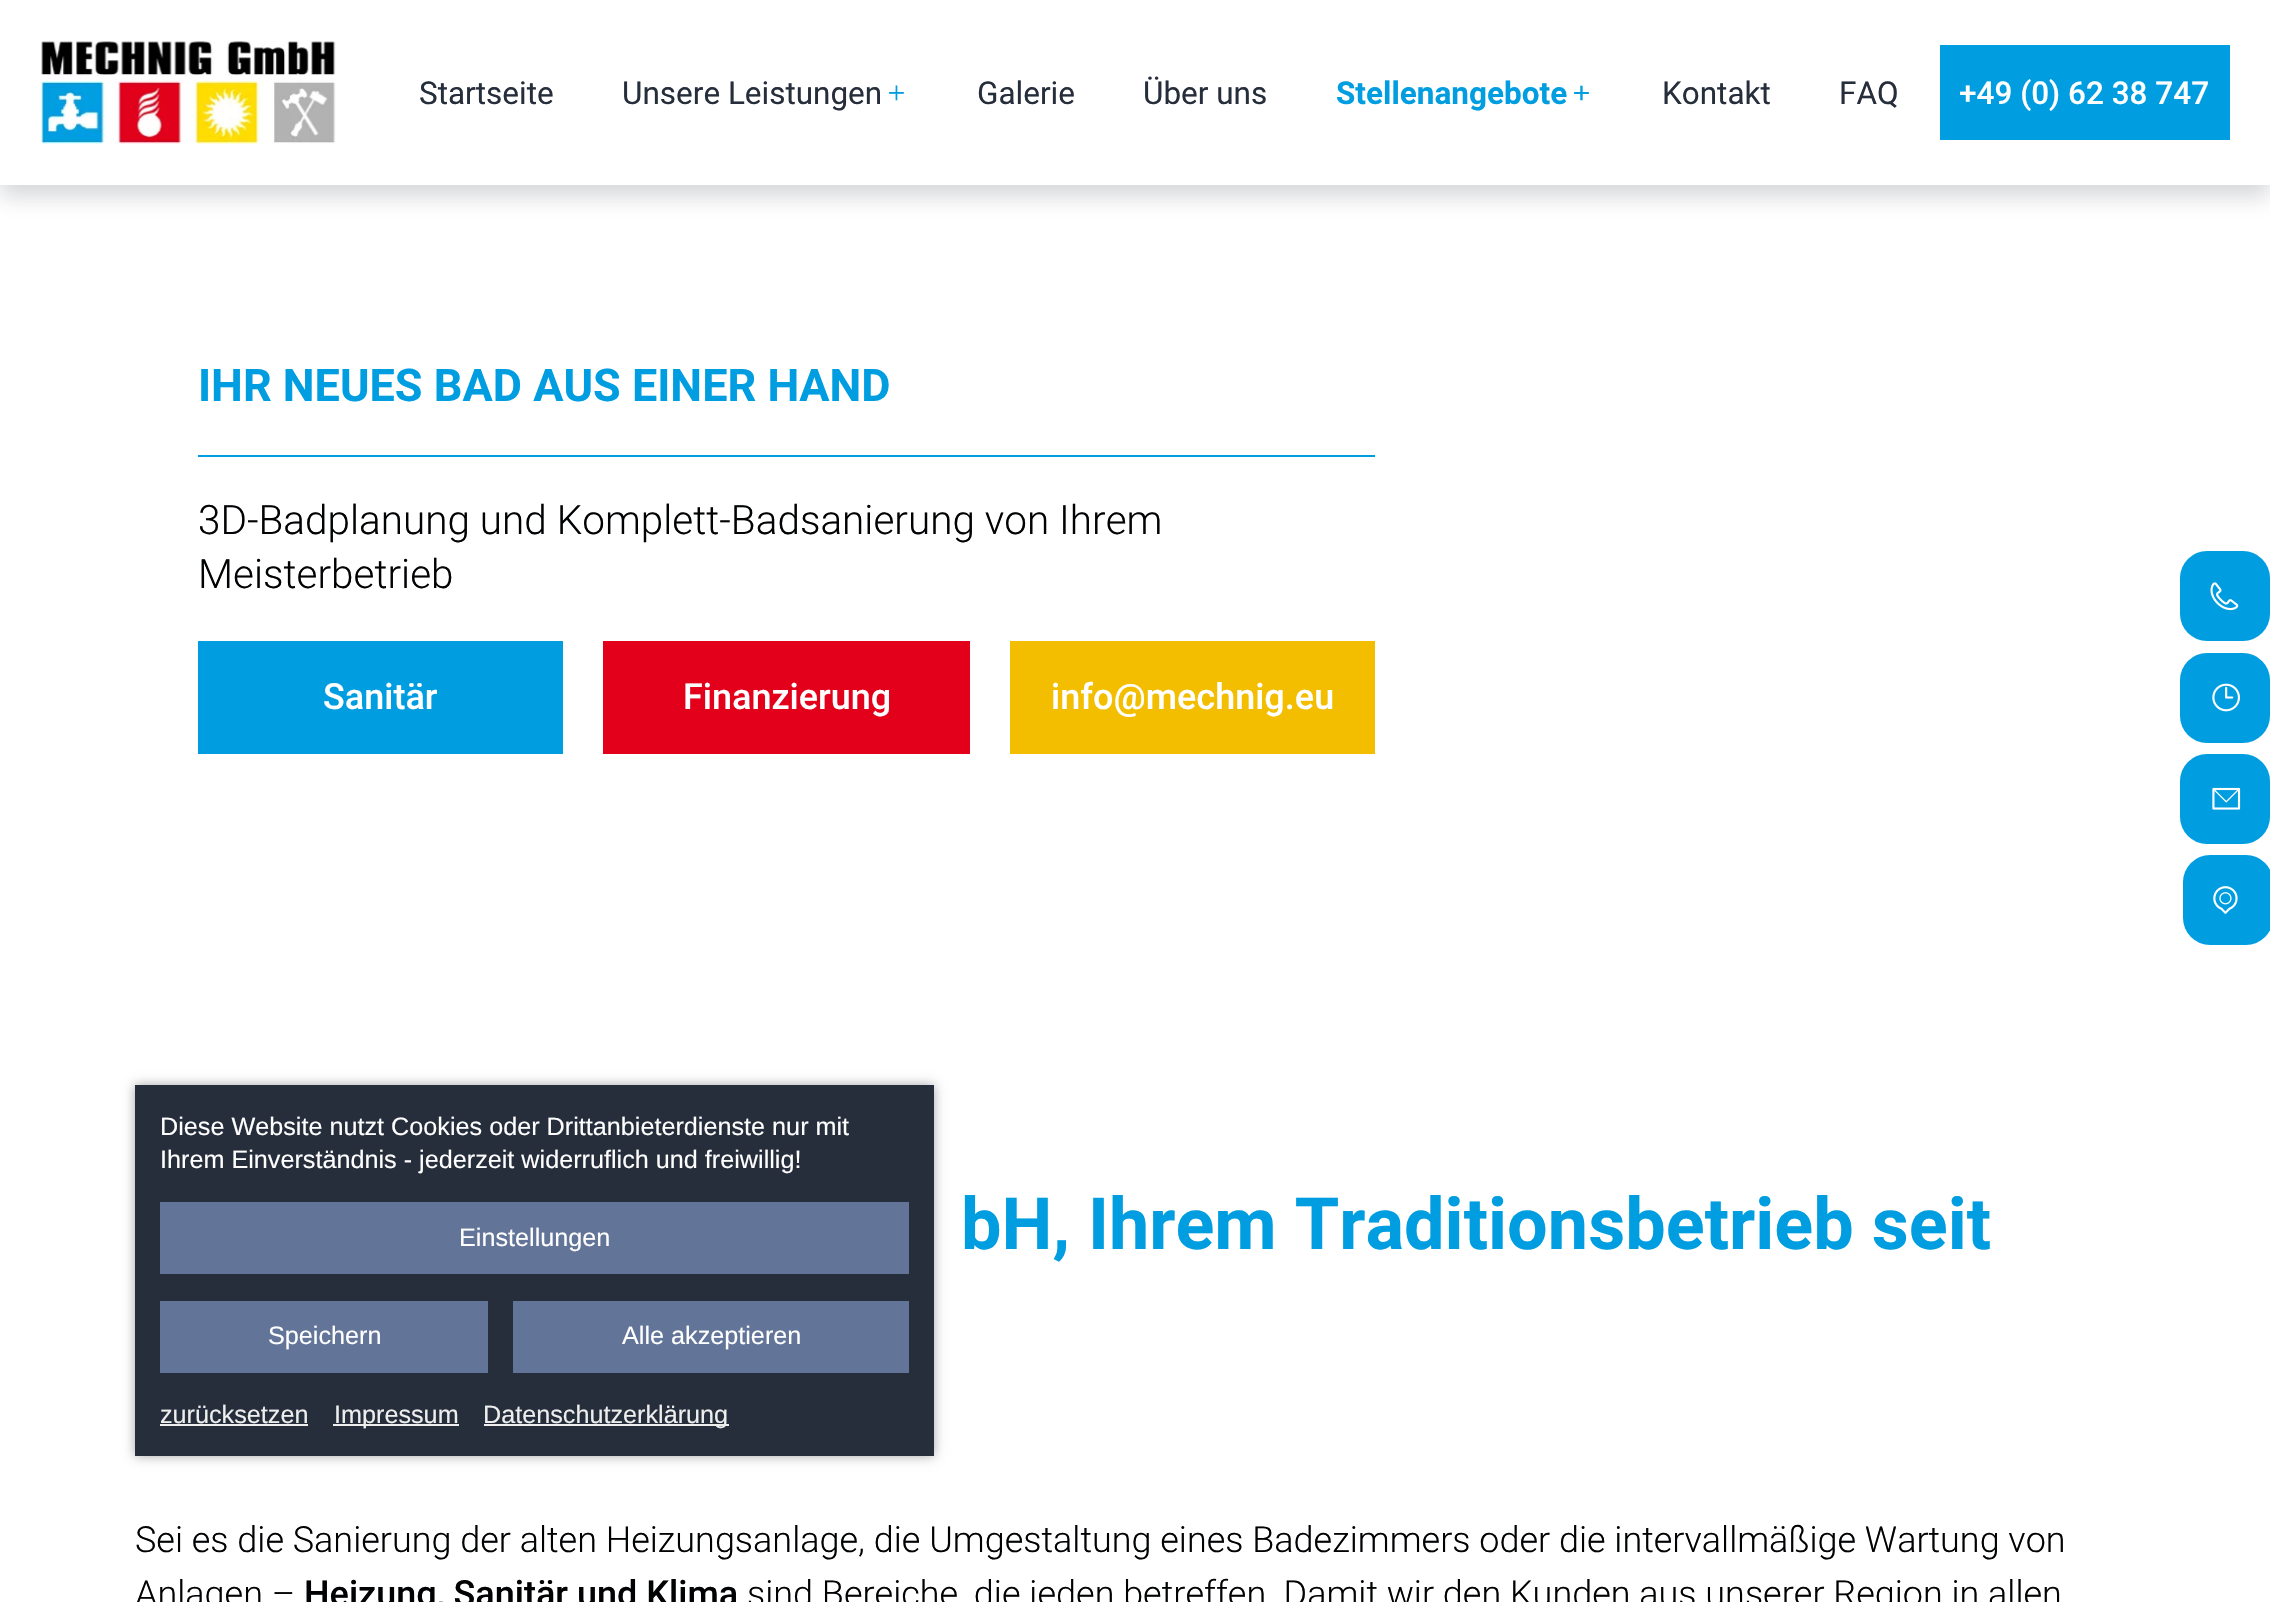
#include "include/core/SkBlurTypes.h"
#include "include/core/SkCanvas.h"
#include "include/core/SkData.h"
#include "include/core/SkFont.h"
#include "include/core/SkFontMgr.h"
#include "include/core/SkImage.h"
#include "include/core/SkMaskFilter.h"
#include "include/core/SkPaint.h"
#include "include/core/SkPathBuilder.h"
#include "include/core/SkTextBlob.h"
#include "include/effects/SkDashPathEffect.h"
#include "include/effects/SkGradientShader.h"
#include "include/utils/SkParsePath.h"

extern sk_sp<SkFontMgr> fontMgr;

static SkFont font(const char* family, int weight, float size, bool italic = false) {
    SkFontStyle style(weight, SkFontStyle::kNormal_Width,
        italic ? SkFontStyle::kItalic_Slant : SkFontStyle::kUpright_Slant);
    SkFont result(fontMgr->matchFamilyStyle(family, style), size);
    result.setSubpixel(true);
    return result;
}

static void drawLabel(SkCanvas* canvas, const char* s, float x, float y, const SkFont& font, SkColor color) {
    SkPaint ink(SkColor4f::FromColor(color));
    ink.setAntiAlias(true);
    canvas->drawString(s, x, y, font, ink);
}

static void fillRect(SkCanvas* canvas, float x, float y, float w, float h, SkColor color) {
    SkPaint ink(SkColor4f::FromColor(color));
    ink.setAntiAlias(true);
    canvas->drawRect(SkRect::MakeXYWH(x, y, w, h), ink);
}

static void fillRRect(SkCanvas* canvas, float x, float y, float w, float h, float radius, SkColor color) {
    SkPaint ink(SkColor4f::FromColor(color));
    ink.setAntiAlias(true);
    canvas->drawRoundRect(SkRect::MakeXYWH(x, y, w, h), radius, radius, ink);
}

static void drawPhoto(SkCanvas* canvas, const char* path, float x, float y, float w, float h) {
    auto image = SkImages::DeferredFromEncodedData(SkData::MakeFromFileName(path));
    canvas->drawImageRect(image, SkRect::MakeXYWH(x, y, w, h), SkSamplingOptions());
}

void draw(SkCanvas* canvas) {
    SkPaint paint;
    paint.setAntiAlias(true);
    canvas->clear(0xFFFFFFFF);
    paint.setColor(0x33262D3B);
    paint.setMaskFilter(SkMaskFilter::MakeBlur(kNormal_SkBlurStyle, 11));
    canvas->drawRect(SkRect::MakeXYWH(0, 11, 2270, 185), paint);
    paint.setMaskFilter(nullptr);
    fillRect(canvas, 0, 0, 2270, 185, 0xFFFFFFFF);
    drawPhoto(canvas, "assets/img1.png", 40, 41, 296, 103);
    SkFont font1 = font("Roboto", 400, 31.5f);
    drawLabel(canvas, "Startseite", 419, 104, font1, 0xFF262D3B);
    drawLabel(canvas, "Unsere Leistungen", 622, 104, font1, 0xFF262D3B);
    SkFont font2 = font("Liberation Serif", 400, 31.5f);
    canvas->save();
    canvas->rotate(90, 886, 84);
    drawLabel(canvas, "+", 886, 84, font2, 0xFF009EE0);
    canvas->restore();
    drawLabel(canvas, "Galerie", 977, 104, font1, 0xFF262D3B);
    drawLabel(canvas, "Über uns", 1143, 104, font1, 0xFF262D3B);
    SkFont font3 = font("Roboto", 700, 31.5f);
    drawLabel(canvas, "Stellenangebote", 1336, 104, font3, 0xFF009EE0);
    SkFont font4 = font("Liberation Serif", 700, 31.5f);
    canvas->save();
    canvas->rotate(90, 1571, 84);
    drawLabel(canvas, "+", 1571, 84, font4, 0xFF009EE0);
    canvas->restore();
    drawLabel(canvas, "Kontakt", 1662, 104, font1, 0xFF262D3B);
    drawLabel(canvas, "FAQ", 1839, 104, font1, 0xFF262D3B);
    fillRect(canvas, 1940, 45, 290, 95, 0xFF009EE0);
    SkFont font5 = font("Roboto", 500, 31.5f);
    drawLabel(canvas, "+49 (0) 62 38 747", 1959, 104, font5, 0xFFFFFFFF);
    SkFont font6 = font("Roboto", 700, 45);
    drawLabel(canvas, "IHR NEUES BAD AUS EINER HAND", 198, 401, font6, 0xFF009EE0);
    fillRect(canvas, 198, 455, 1177, 2, 0xFF009EE0);
    SkFont font7 = font("Roboto", 300, 40.5f);
    drawLabel(canvas, "3D-Badplanung und Komplett-Badsanierung von Ihrem", 198, 534, font7, 0xFF010204);
    drawLabel(canvas, "Meisterbetrieb", 198, 588, font7, 0xFF010204);
    fillRect(canvas, 198, 641, 365, 113, 0xFF009EE0);
    SkFont font8 = font("Roboto", 500, 36);
    drawLabel(canvas, "Sanitär", 323, 709, font8, 0xFFFFFFFF);
    fillRect(canvas, 603, 641, 367, 113, 0xFFE2001A);
    drawLabel(canvas, "Finanzierung", 683, 709, font8, 0xFFFFFFFF);
    fillRect(canvas, 1010, 641, 365, 113, 0xFFF3BE00);
    drawLabel(canvas, "info@mechnig.eu", 1051, 709, font8, 0xFFFFFFFF);
    SkFont font9 = font("Roboto", 700, 72);
    drawLabel(canvas, "bH, Ihrem Traditionsbetrieb seit", 961, 1249, font9, 0xFF009EE0);
    SkFont font10 = font("Roboto", 300, 36);
    drawLabel(canvas, "Sei es die Sanierung der alten Heizungsanlage, die Umgestaltung eines Badezimmers oder die intervallmäßige Wartung von", 135, 1552, font10, 0xFF010204);
    drawLabel(canvas, "Anlagen –", 135, 1606, font10, 0xFF010204);
    drawLabel(canvas, "Heizung, Sanitär und Klima", 304, 1606, font8, 0xFF010204);
    drawLabel(canvas, "sind Bereiche, die jeden betreffen. Damit wir den Kunden aus unserer Region in allen", 747, 1606, font10, 0xFF010204);
    fillRRect(canvas, 2180, 551, 90, 90, 27, 0xFF009EE0);
    drawPhoto(canvas, "assets/img2.png", 2210, 582, 29, 29);
    fillRRect(canvas, 2180, 653, 90, 90, 27, 0xFF009EE0);
    drawPhoto(canvas, "assets/img3.png", 2212, 683, 28, 29);
    fillRRect(canvas, 2180, 754, 90, 90, 27, 0xFF009EE0);
    drawPhoto(canvas, "assets/img4.png", 2212, 787, 29, 23);
    fillRRect(canvas, 2183, 855, 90, 90, 27, 0xFF009EE0);
    drawPhoto(canvas, "assets/img5.png", 2213, 886, 25, 28);
    paint.setColor(0x59000000);
    paint.setMaskFilter(SkMaskFilter::MakeBlur(kNormal_SkBlurStyle, 5.5f));
    canvas->drawRect(SkRect::MakeXYWH(135, 1085, 799, 371), paint);
    paint.setMaskFilter(nullptr);
    fillRect(canvas, 135, 1085, 799, 371, 0xFF262D3B);
    SkFont font11 = font("Liberation Sans", 400, 25.2f);
    drawLabel(canvas, "Diese Website nutzt Cookies oder Drittanbieterdienste nur mit", 160, 1135, font11, 0xFFFFFFFF);
    drawLabel(canvas, "Ihrem Einverständnis - jederzeit widerruflich und freiwillig!", 160, 1168, font11, 0xFFFFFFFF);
    fillRect(canvas, 160, 1202, 749, 72, 0xFF627498);
    drawLabel(canvas, "Einstellungen", 459, 1246, font11, 0xFFFFFFFF);
    fillRect(canvas, 160, 1301, 328, 72, 0xFF627498);
    drawLabel(canvas, "Speichern", 268, 1344, font11, 0xFFFFFFFF);
    fillRect(canvas, 513, 1301, 396, 72, 0xFF627498);
    drawLabel(canvas, "Alle akzeptieren", 622, 1344, font11, 0xFFFFFFFF);
    drawLabel(canvas, "zurücksetzen", 160, 1423, font11, 0xFFEEEEEE);
    fillRect(canvas, 160, 1424, 148, 2, 0xFFEEEEEE);
    fillRect(canvas, 333, 1424, 126, 2, 0xFFEEEEEE);
    drawLabel(canvas, "Impressum", 334, 1423, font11, 0xFFEEEEEE);
    fillRect(canvas, 484, 1424, 245, 2, 0xFFEEEEEE);
    drawLabel(canvas, "Datenschutzerklärung", 483, 1423, font11, 0xFFEEEEEE);
}
